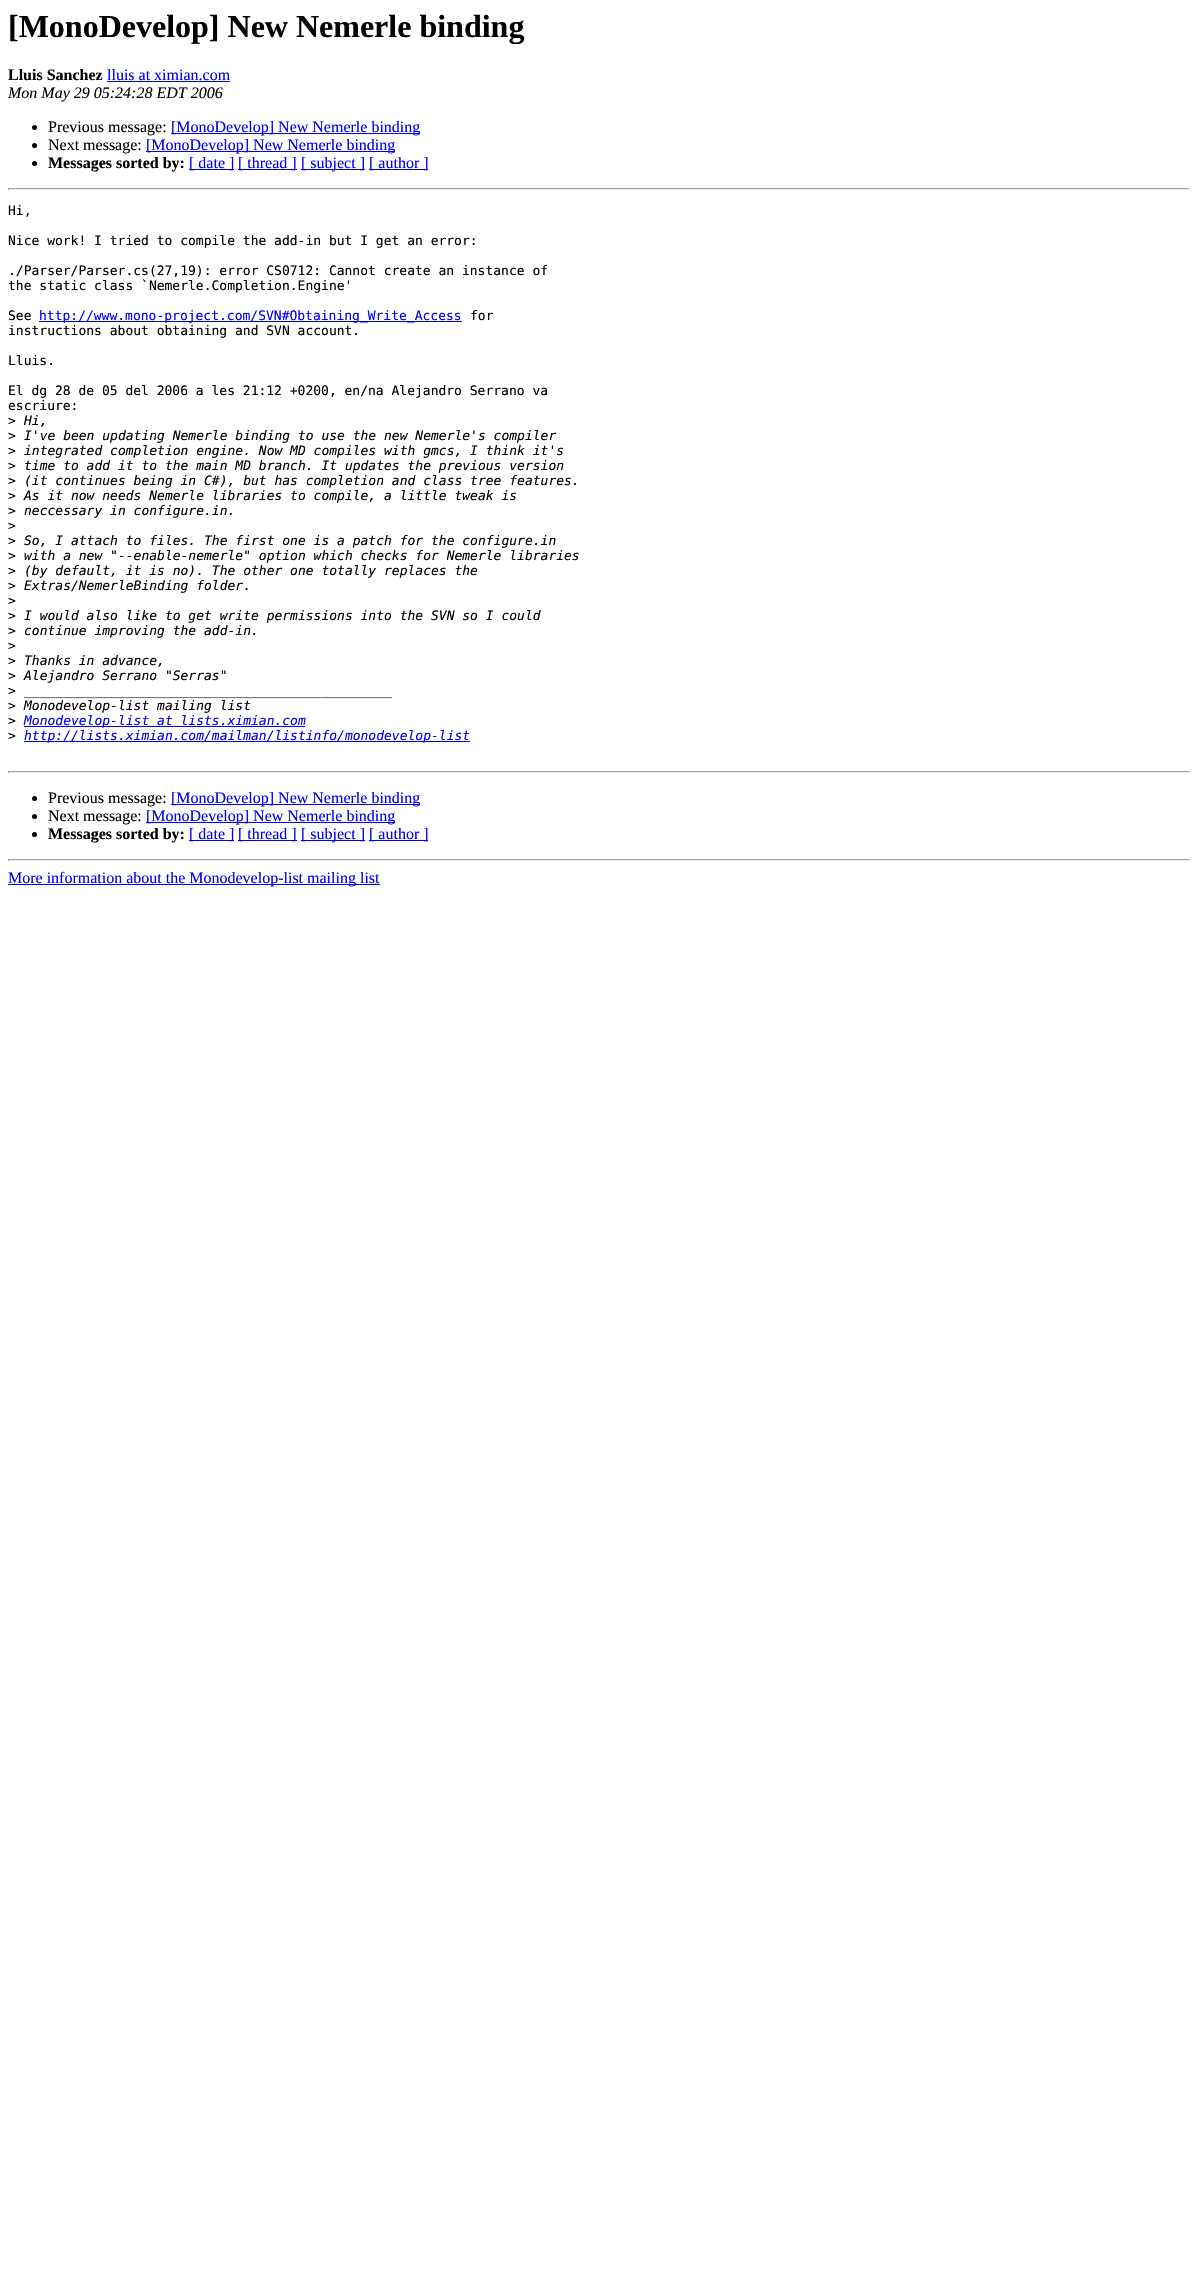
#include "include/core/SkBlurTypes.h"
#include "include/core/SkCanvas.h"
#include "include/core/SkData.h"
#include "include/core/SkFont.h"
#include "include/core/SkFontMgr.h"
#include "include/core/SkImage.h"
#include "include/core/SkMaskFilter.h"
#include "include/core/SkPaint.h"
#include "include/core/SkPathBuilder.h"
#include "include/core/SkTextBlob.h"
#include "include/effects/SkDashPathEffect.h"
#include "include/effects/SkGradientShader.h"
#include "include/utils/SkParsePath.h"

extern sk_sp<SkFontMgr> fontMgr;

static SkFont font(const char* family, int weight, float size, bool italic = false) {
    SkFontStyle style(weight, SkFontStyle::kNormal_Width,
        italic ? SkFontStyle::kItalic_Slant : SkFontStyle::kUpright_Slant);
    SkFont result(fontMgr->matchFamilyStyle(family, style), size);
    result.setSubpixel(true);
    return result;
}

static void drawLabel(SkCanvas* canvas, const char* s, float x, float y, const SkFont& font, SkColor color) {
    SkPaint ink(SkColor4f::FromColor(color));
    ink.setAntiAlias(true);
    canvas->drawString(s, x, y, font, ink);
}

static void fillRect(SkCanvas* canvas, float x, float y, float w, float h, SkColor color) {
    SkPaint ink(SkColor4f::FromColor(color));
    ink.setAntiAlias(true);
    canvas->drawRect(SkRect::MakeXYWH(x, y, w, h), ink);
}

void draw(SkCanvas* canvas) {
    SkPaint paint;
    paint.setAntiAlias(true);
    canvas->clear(0xFFFFFFFF);
    SkFont font1 = font("Liberation Serif", 700, 32);
    drawLabel(canvas, "[MonoDevelop] New Nemerle binding", 8, 37, font1, 0xFF000000);
    SkFont font2 = font("Liberation Serif", 700, 16);
    drawLabel(canvas, "Lluis Sanchez", 8, 80, font2, 0xFF000000);
    SkFont font3 = font("Liberation Serif", 400, 16);
    drawLabel(canvas, "lluis at ximian.com", 107, 80, font3, 0xFF0000EE);
    fillRect(canvas, 107, 81, 123, 1, 0xFF0000EE);
    SkFont font4 = font("Liberation Serif", 400, 16, true);
    drawLabel(canvas, "Mon May 29 05:24:28 EDT 2006", 8, 98, font4, 0xFF000000);
    paint.setColor(0xFF000000);
    canvas->drawCircle(34.5f, 127.5f, 2.5f, paint);
    drawLabel(canvas, "Previous message:", 48, 132, font3, 0xFF000000);
    fillRect(canvas, 171, 133, 249, 1, 0xFF0000EE);
    drawLabel(canvas, "[MonoDevelop] New Nemerle binding", 171, 132, font3, 0xFF0000EE);
    canvas->drawCircle(34.5f, 145.5f, 2.5f, paint);
    drawLabel(canvas, "Next message:", 48, 150, font3, 0xFF000000);
    fillRect(canvas, 146, 151, 249, 1, 0xFF0000EE);
    drawLabel(canvas, "[MonoDevelop] New Nemerle binding", 146, 150, font3, 0xFF0000EE);
    canvas->drawCircle(34.5f, 163.5f, 2.5f, paint);
    drawLabel(canvas, "Messages sorted by:", 48, 168, font2, 0xFF000000);
    fillRect(canvas, 189, 169, 45, 1, 0xFF0000EE);
    drawLabel(canvas, "[ date ]", 189, 168, font3, 0xFF0000EE);
    fillRect(canvas, 238, 169, 59, 1, 0xFF0000EE);
    drawLabel(canvas, "[ thread ]", 238, 168, font3, 0xFF0000EE);
    fillRect(canvas, 301, 169, 64, 1, 0xFF0000EE);
    drawLabel(canvas, "[ subject ]", 301, 168, font3, 0xFF0000EE);
    fillRect(canvas, 369, 169, 59, 1, 0xFF0000EE);
    drawLabel(canvas, "[ author ]", 369, 168, font3, 0xFF0000EE);
    fillRect(canvas, 8, 188, 1182, 1, 0xFF9F9F9F);
    fillRect(canvas, 1189, 188, 1, 2, 0xFFEEEEEE);
    fillRect(canvas, 8, 189, 1182, 1, 0xFFEEEEEE);
    fillRect(canvas, 8, 188, 1, 2, 0xFF9F9F9F);
    SkFont font5 = font("DejaVu Sans Mono", 400, 13);
    drawLabel(canvas, "Hi,", 8, 215, font5, 0xFF000000);
    drawLabel(canvas, "Nice work! I tried to compile the add-in but I get an error:", 8, 245, font5, 0xFF000000);
    drawLabel(canvas, "./Parser/Parser.cs(27,19): error CS0712: Cannot create an instance of", 8, 275, font5, 0xFF000000);
    drawLabel(canvas, "the static class `Nemerle.Completion.Engine'", 8, 290, font5, 0xFF000000);
    drawLabel(canvas, "See", 8, 320, font5, 0xFF000000);
    fillRect(canvas, 39, 321, 423, 1, 0xFF0000EE);
    drawLabel(canvas, "http://www.mono-project.com/SVN#Obtaining_Write_Access", 39, 320, font5, 0xFF0000EE);
    drawLabel(canvas, "for", 470, 320, font5, 0xFF000000);
    drawLabel(canvas, "instructions about obtaining and SVN account.", 8, 335, font5, 0xFF000000);
    drawLabel(canvas, "Lluis.", 8, 365, font5, 0xFF000000);
    drawLabel(canvas, "El dg 28 de 05 del 2006 a les 21:12 +0200, en/na Alejandro Serrano va", 8, 395, font5, 0xFF000000);
    drawLabel(canvas, "escriure:", 8, 410, font5, 0xFF000000);
    drawLabel(canvas, ">", 8, 425, font5, 0xFF000000);
    SkFont font6 = font("DejaVu Sans Mono", 400, 13, true);
    drawLabel(canvas, "Hi,", 24, 425, font6, 0xFF000000);
    drawLabel(canvas, ">", 8, 440, font5, 0xFF000000);
    drawLabel(canvas, "I've been updating Nemerle binding to use the new Nemerle's compiler", 24, 440, font6, 0xFF000000);
    drawLabel(canvas, ">", 8, 455, font5, 0xFF000000);
    drawLabel(canvas, "integrated completion engine. Now MD compiles with gmcs, I think it's", 24, 455, font6, 0xFF000000);
    drawLabel(canvas, ">", 8, 470, font5, 0xFF000000);
    drawLabel(canvas, "time to add it to the main MD branch. It updates the previous version", 24, 470, font6, 0xFF000000);
    drawLabel(canvas, ">", 8, 485, font5, 0xFF000000);
    drawLabel(canvas, "(it continues being in C#), but has completion and class tree features.", 24, 485, font6, 0xFF000000);
    drawLabel(canvas, ">", 8, 500, font5, 0xFF000000);
    drawLabel(canvas, "As it now needs Nemerle libraries to compile, a little tweak is", 24, 500, font6, 0xFF000000);
    drawLabel(canvas, ">", 8, 515, font5, 0xFF000000);
    drawLabel(canvas, "neccessary in configure.in.", 24, 515, font6, 0xFF000000);
    drawLabel(canvas, ">", 8, 530, font5, 0xFF000000);
    drawLabel(canvas, ">", 8, 545, font5, 0xFF000000);
    drawLabel(canvas, "So, I attach to files. The first one is a patch for the configure.in", 24, 545, font6, 0xFF000000);
    drawLabel(canvas, ">", 8, 560, font5, 0xFF000000);
    drawLabel(canvas, "with a new \"--enable-nemerle\" option which checks for Nemerle libraries", 24, 560, font6, 0xFF000000);
    drawLabel(canvas, ">", 8, 575, font5, 0xFF000000);
    drawLabel(canvas, "(by default, it is no). The other one totally replaces the", 24, 575, font6, 0xFF000000);
    drawLabel(canvas, ">", 8, 590, font5, 0xFF000000);
    drawLabel(canvas, "Extras/NemerleBinding folder.", 24, 590, font6, 0xFF000000);
    drawLabel(canvas, ">", 8, 605, font5, 0xFF000000);
    drawLabel(canvas, ">", 8, 620, font5, 0xFF000000);
    drawLabel(canvas, "I would also like to get write permissions into the SVN so I could", 24, 620, font6, 0xFF000000);
    drawLabel(canvas, ">", 8, 635, font5, 0xFF000000);
    drawLabel(canvas, "continue improving the add-in.", 24, 635, font6, 0xFF000000);
    drawLabel(canvas, ">", 8, 650, font5, 0xFF000000);
    drawLabel(canvas, ">", 8, 665, font5, 0xFF000000);
    drawLabel(canvas, "Thanks in advance,", 24, 665, font6, 0xFF000000);
    drawLabel(canvas, ">", 8, 680, font5, 0xFF000000);
    drawLabel(canvas, "Alejandro Serrano \"Serras\"", 24, 680, font6, 0xFF000000);
    drawLabel(canvas, ">", 8, 695, font5, 0xFF000000);
    drawLabel(canvas, "_______________________________________________", 24, 695, font6, 0xFF000000);
    drawLabel(canvas, ">", 8, 710, font5, 0xFF000000);
    drawLabel(canvas, "Monodevelop-list mailing list", 24, 710, font6, 0xFF000000);
    drawLabel(canvas, ">", 8, 725, font5, 0xFF000000);
    fillRect(canvas, 24, 726, 281, 1, 0xFF0000EE);
    drawLabel(canvas, "Monodevelop-list at lists.ximian.com", 24, 725, font6, 0xFF0000EE);
    drawLabel(canvas, ">", 8, 740, font5, 0xFF000000);
    fillRect(canvas, 24, 741, 446, 1, 0xFF0000EE);
    drawLabel(canvas, "http://lists.ximian.com/mailman/listinfo/monodevelop-list", 24, 740, font6, 0xFF0000EE);
    fillRect(canvas, 8, 771, 1182, 1, 0xFF9F9F9F);
    fillRect(canvas, 1189, 771, 1, 2, 0xFFEEEEEE);
    fillRect(canvas, 8, 772, 1182, 1, 0xFFEEEEEE);
    fillRect(canvas, 8, 771, 1, 2, 0xFF9F9F9F);
    canvas->drawCircle(34.5f, 798.5f, 2.5f, paint);
    drawLabel(canvas, "Previous message:", 48, 803, font3, 0xFF000000);
    fillRect(canvas, 171, 804, 249, 1, 0xFF0000EE);
    drawLabel(canvas, "[MonoDevelop] New Nemerle binding", 171, 803, font3, 0xFF0000EE);
    canvas->drawCircle(34.5f, 816.5f, 2.5f, paint);
    drawLabel(canvas, "Next message:", 48, 821, font3, 0xFF000000);
    fillRect(canvas, 146, 822, 249, 1, 0xFF0000EE);
    drawLabel(canvas, "[MonoDevelop] New Nemerle binding", 146, 821, font3, 0xFF0000EE);
    canvas->drawCircle(34.5f, 834.5f, 2.5f, paint);
    drawLabel(canvas, "Messages sorted by:", 48, 839, font2, 0xFF000000);
    fillRect(canvas, 189, 840, 45, 1, 0xFF0000EE);
    drawLabel(canvas, "[ date ]", 189, 839, font3, 0xFF0000EE);
    fillRect(canvas, 238, 840, 59, 1, 0xFF0000EE);
    drawLabel(canvas, "[ thread ]", 238, 839, font3, 0xFF0000EE);
    fillRect(canvas, 301, 840, 64, 1, 0xFF0000EE);
    drawLabel(canvas, "[ subject ]", 301, 839, font3, 0xFF0000EE);
    fillRect(canvas, 369, 840, 59, 1, 0xFF0000EE);
    drawLabel(canvas, "[ author ]", 369, 839, font3, 0xFF0000EE);
    fillRect(canvas, 8, 859, 1182, 1, 0xFF9F9F9F);
    fillRect(canvas, 1189, 859, 1, 2, 0xFFEEEEEE);
    fillRect(canvas, 8, 860, 1182, 1, 0xFFEEEEEE);
    fillRect(canvas, 8, 859, 1, 2, 0xFF9F9F9F);
    fillRect(canvas, 8, 884, 372, 1, 0xFF0000EE);
    drawLabel(canvas, "More information about the Monodevelop-list mailing list", 8, 883, font3, 0xFF0000EE);
}
